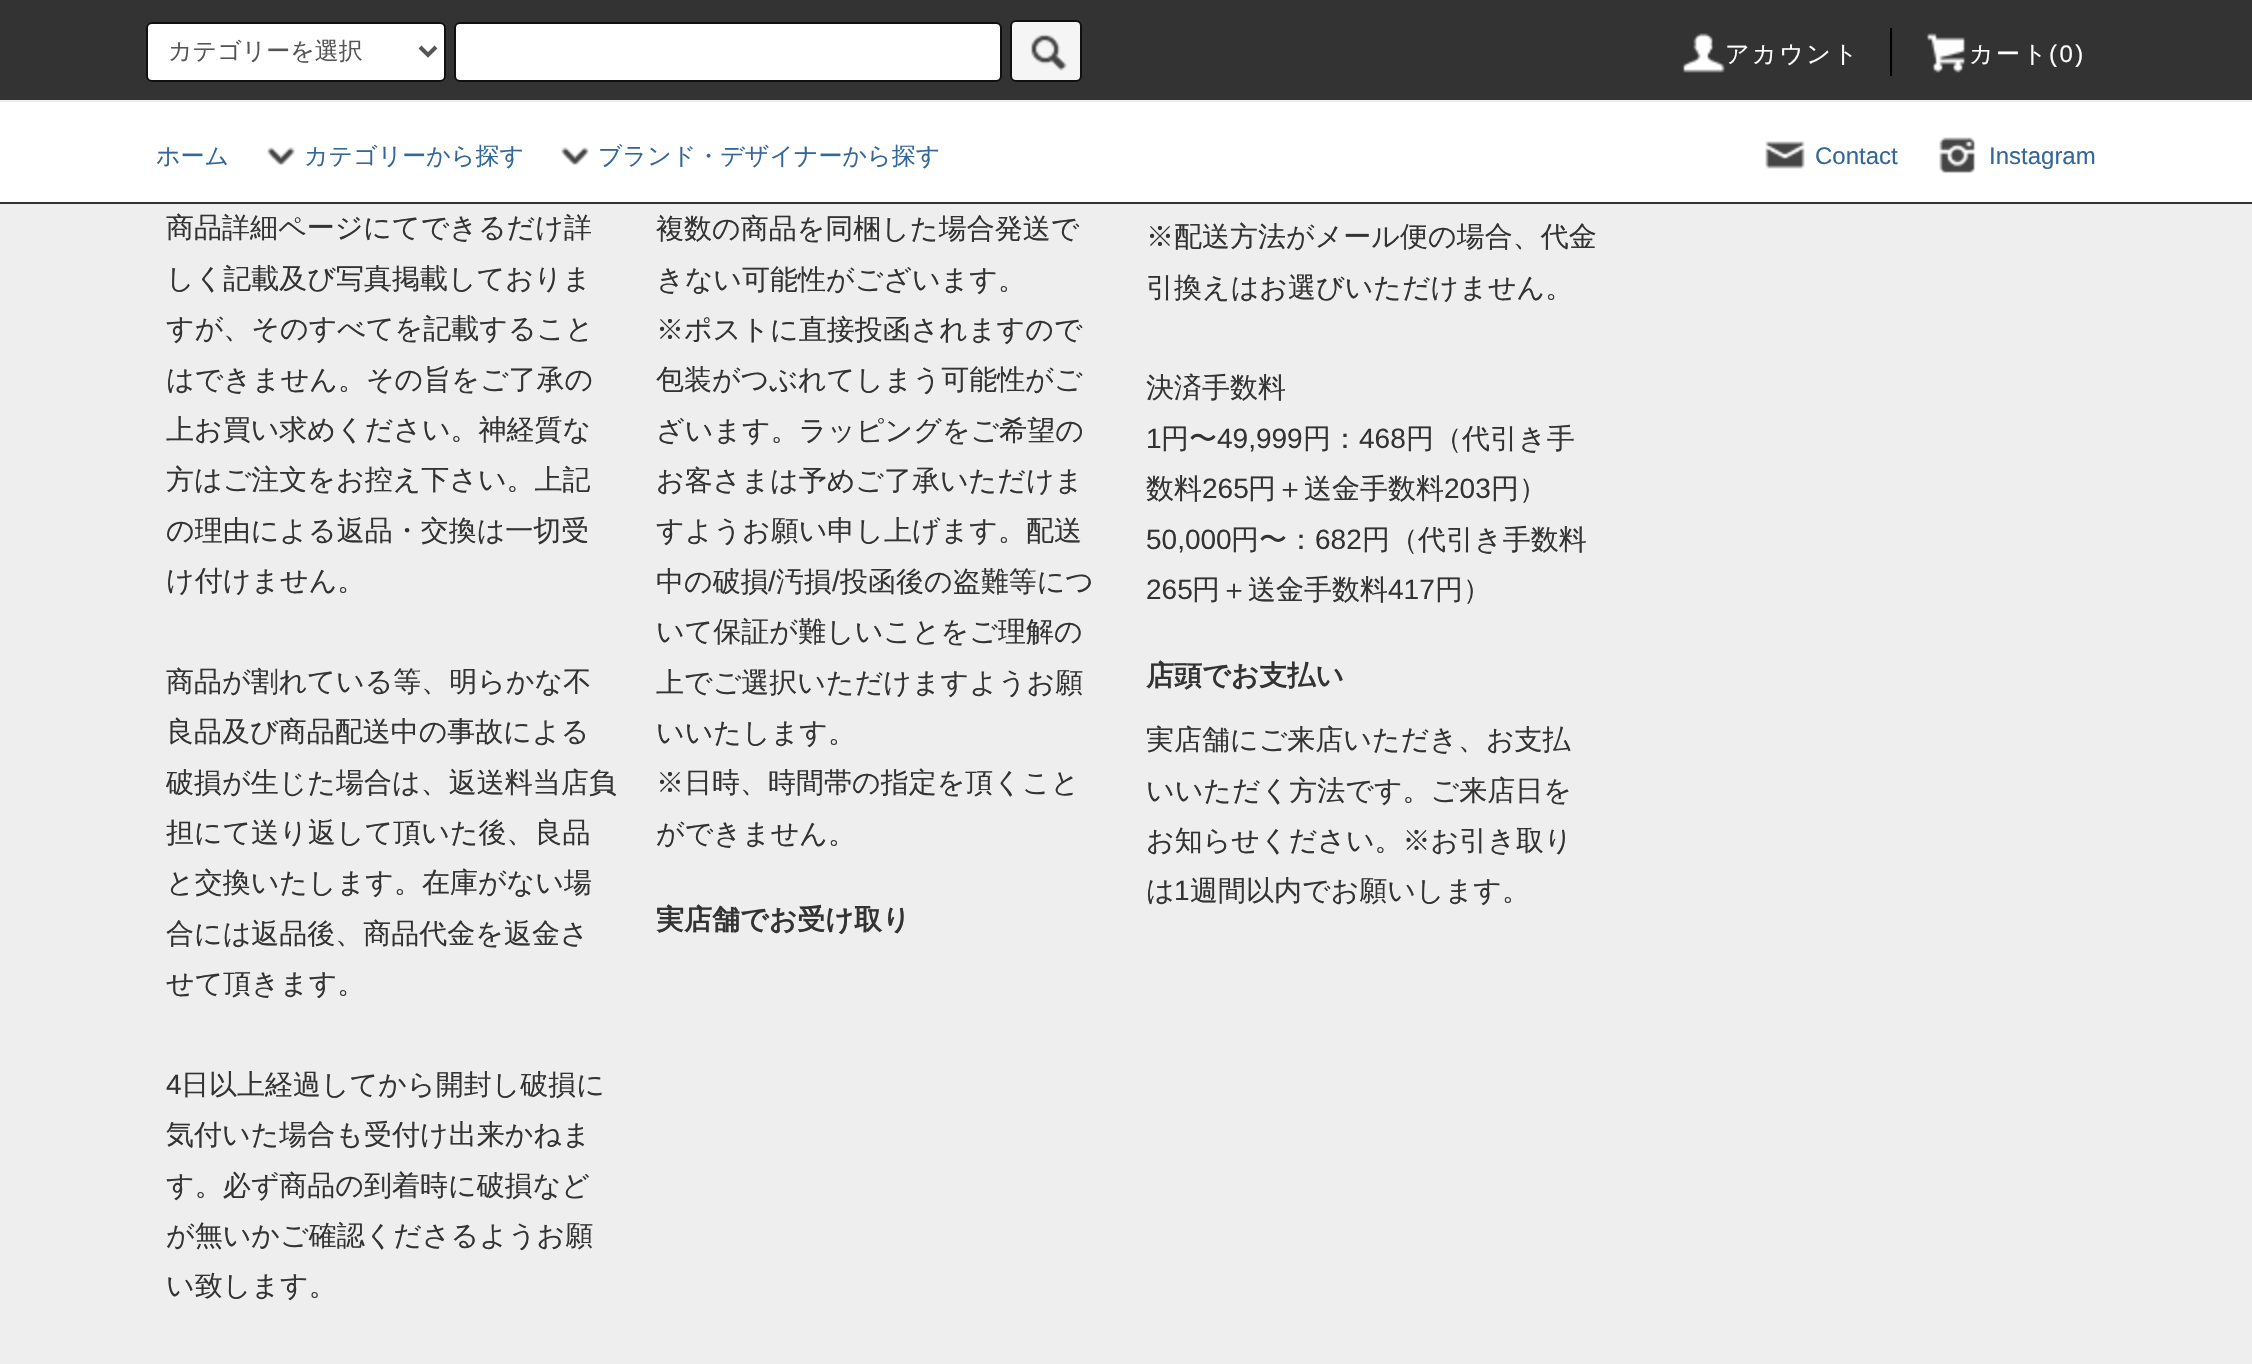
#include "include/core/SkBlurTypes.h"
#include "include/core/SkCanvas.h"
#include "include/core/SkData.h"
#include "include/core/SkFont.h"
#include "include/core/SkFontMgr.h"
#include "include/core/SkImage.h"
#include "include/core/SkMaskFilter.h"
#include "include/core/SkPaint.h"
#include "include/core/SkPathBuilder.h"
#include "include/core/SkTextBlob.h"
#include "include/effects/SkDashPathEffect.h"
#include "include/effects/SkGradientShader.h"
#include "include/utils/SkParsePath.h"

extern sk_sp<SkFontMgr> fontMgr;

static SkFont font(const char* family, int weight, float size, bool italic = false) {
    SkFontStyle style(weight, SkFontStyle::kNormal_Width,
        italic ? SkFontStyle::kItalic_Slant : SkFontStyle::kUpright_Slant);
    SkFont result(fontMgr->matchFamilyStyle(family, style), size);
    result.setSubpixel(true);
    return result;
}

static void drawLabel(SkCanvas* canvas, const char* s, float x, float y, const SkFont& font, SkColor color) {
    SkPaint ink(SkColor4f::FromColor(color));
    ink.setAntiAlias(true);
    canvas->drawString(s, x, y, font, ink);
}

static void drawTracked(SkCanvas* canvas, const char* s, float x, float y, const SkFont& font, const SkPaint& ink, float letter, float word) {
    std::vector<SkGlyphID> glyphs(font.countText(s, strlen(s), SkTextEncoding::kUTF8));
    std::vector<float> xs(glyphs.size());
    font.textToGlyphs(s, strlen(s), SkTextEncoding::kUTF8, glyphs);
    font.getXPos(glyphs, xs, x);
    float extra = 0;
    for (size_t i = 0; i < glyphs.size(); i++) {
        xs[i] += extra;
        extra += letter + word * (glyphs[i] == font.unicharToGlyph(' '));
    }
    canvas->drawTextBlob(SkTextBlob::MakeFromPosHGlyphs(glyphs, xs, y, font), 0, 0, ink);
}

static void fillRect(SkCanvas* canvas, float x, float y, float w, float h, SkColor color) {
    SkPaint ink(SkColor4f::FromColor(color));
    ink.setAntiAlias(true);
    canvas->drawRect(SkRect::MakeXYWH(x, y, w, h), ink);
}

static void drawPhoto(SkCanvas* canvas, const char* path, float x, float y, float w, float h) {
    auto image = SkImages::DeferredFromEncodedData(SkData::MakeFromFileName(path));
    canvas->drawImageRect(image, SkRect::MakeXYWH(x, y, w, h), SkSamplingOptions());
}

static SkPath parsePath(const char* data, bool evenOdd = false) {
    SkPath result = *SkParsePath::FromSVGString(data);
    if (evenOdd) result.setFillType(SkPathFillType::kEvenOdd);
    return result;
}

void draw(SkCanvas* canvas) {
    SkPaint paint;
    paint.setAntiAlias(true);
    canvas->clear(0xFFEEEEEE);
    fillRect(canvas, 0, 0, 2252, 100, 0xFF333333);
    paint.setColor(0xFFFFFFFF);
    canvas->drawRoundRect(SkRect::MakeXYWH(147, 23, 298, 58), 5, 5, paint);
    paint.setStroke(true);
    paint.setStrokeWidth(2);
    paint.setColor(0xFF101010);
    canvas->drawRoundRect(SkRect::MakeXYWH(147, 23, 298, 58), 5, 5, paint);
    paint.setStrokeWidth(4);
    paint.setColor(0xFF555555);
    canvas->drawPath(parsePath("M420 47L428 55L436 47"), paint);
    SkFont font1 = font("WenQuanYi Zen Hei", 500, 24);
    drawLabel(canvas, "カテゴリーを選択", 168, 59, font1, 0xFF555555);
    paint.setStroke(false);
    paint.setColor(0xFFFFFFFF);
    canvas->drawRoundRect(SkRect::MakeXYWH(455, 23, 546, 58), 5, 5, paint);
    paint.setStroke(true);
    paint.setStrokeWidth(2);
    paint.setColor(0xFF101010);
    canvas->drawRoundRect(SkRect::MakeXYWH(455, 23, 546, 58), 5, 5, paint);
    paint.setStroke(false);
    paint.setColor(0xFFF5F5F5);
    canvas->drawRoundRect(SkRect::MakeXYWH(1011, 21, 70, 60), 5, 5, paint);
    paint.setStroke(true);
    paint.setColor(0xFF101010);
    canvas->drawRoundRect(SkRect::MakeXYWH(1011, 21, 70, 60), 5, 5, paint);
    drawPhoto(canvas, "assets/img1.png", 1030, 34, 37, 37);
    drawPhoto(canvas, "assets/img2.png", 1682, 33, 43, 40);
    paint.setStroke(false);
    paint.setColor(0xFFFFFFFF);
    drawTracked(canvas, "アカウント", 1725, 62, font1, paint, 2.5f, 0);
    fillRect(canvas, 1890, 28, 2, 48, 0xFF000000);
    drawPhoto(canvas, "assets/img3.png", 1926, 33, 40, 40);
    drawTracked(canvas, "カート", 1969, 62, font1, paint, 2.5f, 0);
    SkFont font2 = font("Liberation Sans", 400, 24);
    drawTracked(canvas, "(0)", 2049, 62, font2, paint, 2.5f, 0);
    fillRect(canvas, 0, 102, 2252, 100, 0xFFFFFFFF);
    fillRect(canvas, 0, 202, 2252, 2, 0xFF333333);
    drawLabel(canvas, "ホーム", 156, 164, font1, 0xFF336699);
    drawPhoto(canvas, "assets/img4.png", 267, 147, 28, 19);
    drawLabel(canvas, "カテゴリーから探す", 304, 164, font1, 0xFF336699);
    drawPhoto(canvas, "assets/img4.png", 561, 147, 28, 19);
    drawLabel(canvas, "ブランド・デザイナーから探す", 598, 164, font1, 0xFF336699);
    drawPhoto(canvas, "assets/img5.png", 1765, 141, 40, 28);
    drawLabel(canvas, "Contact", 1815, 164, font2, 0xFF336699);
    drawPhoto(canvas, "assets/img6.png", 1939, 137, 37, 37);
    drawLabel(canvas, "Instagram", 1989, 164, font2, 0xFF336699);
    SkFont font3 = font("WenQuanYi Zen Hei", 500, 28);
    drawLabel(canvas, "商品詳細ページにてできるだけ詳", 166, 237, font3, 0xFF333333);
    drawLabel(canvas, "しく記載及び写真掲載しておりま", 166, 288, font3, 0xFF333333);
    drawLabel(canvas, "すが、そのすべてを記載すること", 166, 338, font3, 0xFF333333);
    drawLabel(canvas, "はできません。その旨をご了承の", 166, 389, font3, 0xFF333333);
    drawLabel(canvas, "上お買い求めください。神経質な", 166, 439, font3, 0xFF333333);
    drawLabel(canvas, "方はご注文をお控え下さい。上記", 166, 489, font3, 0xFF333333);
    drawLabel(canvas, "の理由による返品・交換は一切受", 166, 540, font3, 0xFF333333);
    drawLabel(canvas, "け付けません。", 166, 590, font3, 0xFF333333);
    drawLabel(canvas, "商品が割れている等、明らかな不", 166, 691, font3, 0xFF333333);
    drawLabel(canvas, "良品及び商品配送中の事故による", 166, 741, font3, 0xFF333333);
    drawLabel(canvas, "破損が生じた場合は、返送料当店負", 166, 792, font3, 0xFF333333);
    drawLabel(canvas, "担にて送り返して頂いた後、良品", 166, 842, font3, 0xFF333333);
    drawLabel(canvas, "と交換いたします。在庫がない場", 166, 892, font3, 0xFF333333);
    drawLabel(canvas, "合には返品後、商品代金を返金さ", 166, 943, font3, 0xFF333333);
    drawLabel(canvas, "せて頂きます。", 166, 993, font3, 0xFF333333);
    SkFont font4 = font("Liberation Sans", 400, 28);
    drawLabel(canvas, "4", 166, 1094, font4, 0xFF333333);
    drawLabel(canvas, "日以上経過してから開封し破損に", 181, 1094, font3, 0xFF333333);
    drawLabel(canvas, "気付いた場合も受付け出来かねま", 166, 1144, font3, 0xFF333333);
    drawLabel(canvas, "す。必ず商品の到着時に破損など", 166, 1195, font3, 0xFF333333);
    drawLabel(canvas, "が無いかご確認くださるようお願", 166, 1245, font3, 0xFF333333);
    drawLabel(canvas, "い致します。", 166, 1295, font3, 0xFF333333);
    drawLabel(canvas, "複数の商品を同梱した場合発送で", 656, 238, font3, 0xFF333333);
    drawLabel(canvas, "きない可能性がございます。", 656, 289, font3, 0xFF333333);
    drawLabel(canvas, "※ポストに直接投函されますので", 656, 339, font3, 0xFF333333);
    drawLabel(canvas, "包装がつぶれてしまう可能性がご", 656, 389, font3, 0xFF333333);
    drawLabel(canvas, "ざいます。ラッピングをご希望の", 656, 440, font3, 0xFF333333);
    drawLabel(canvas, "お客さまは予めご了承いただけま", 656, 490, font3, 0xFF333333);
    drawLabel(canvas, "すようお願い申し上げます。配送", 656, 540, font3, 0xFF333333);
    drawLabel(canvas, "中の破損", 656, 591, font3, 0xFF333333);
    drawLabel(canvas, "/", 768, 591, font4, 0xFF333333);
    drawLabel(canvas, "汚損", 776, 591, font3, 0xFF333333);
    drawLabel(canvas, "/", 832, 591, font4, 0xFF333333);
    drawLabel(canvas, "投函後の盗難等につ", 840, 591, font3, 0xFF333333);
    drawLabel(canvas, "いて保証が難しいことをご理解の", 656, 641, font3, 0xFF333333);
    drawLabel(canvas, "上でご選択いただけますようお願", 656, 692, font3, 0xFF333333);
    drawLabel(canvas, "いいたします。", 656, 742, font3, 0xFF333333);
    drawLabel(canvas, "※日時、時間帯の指定を頂くこと", 656, 792, font3, 0xFF333333);
    drawLabel(canvas, "ができません。", 656, 843, font3, 0xFF333333);
    SkFont font5 = font("WenQuanYi Zen Hei", 700, 28);
    drawLabel(canvas, "実店舗でお受け取り", 656, 929, font5, 0xFF333333);
    drawLabel(canvas, "※配送方法がメール便の場合、代金", 1146, 246, font3, 0xFF333333);
    drawLabel(canvas, "引換えはお選びいただけません。", 1146, 297, font3, 0xFF333333);
    drawLabel(canvas, "決済手数料", 1146, 397, font3, 0xFF333333);
    drawLabel(canvas, "1", 1146, 448, font4, 0xFF333333);
    drawLabel(canvas, "円〜", 1161, 448, font3, 0xFF333333);
    drawLabel(canvas, "49,999", 1217, 448, font4, 0xFF333333);
    drawLabel(canvas, "円：", 1303, 448, font3, 0xFF333333);
    drawLabel(canvas, "468", 1359, 448, font4, 0xFF333333);
    drawLabel(canvas, "円（代引き手", 1406, 448, font3, 0xFF333333);
    drawLabel(canvas, "数料", 1146, 498, font3, 0xFF333333);
    drawLabel(canvas, "265", 1202, 498, font4, 0xFF333333);
    drawLabel(canvas, "円＋送金手数料", 1248, 498, font3, 0xFF333333);
    drawLabel(canvas, "203", 1444, 498, font4, 0xFF333333);
    drawLabel(canvas, "円）", 1491, 498, font3, 0xFF333333);
    drawLabel(canvas, "50,000", 1146, 549, font4, 0xFF333333);
    drawLabel(canvas, "円〜：", 1231, 549, font3, 0xFF333333);
    drawLabel(canvas, "682", 1315, 549, font4, 0xFF333333);
    drawLabel(canvas, "円（代引き手数料", 1362, 549, font3, 0xFF333333);
    drawLabel(canvas, "265", 1146, 599, font4, 0xFF333333);
    drawLabel(canvas, "円＋送金手数料", 1192, 599, font3, 0xFF333333);
    drawLabel(canvas, "417", 1388, 599, font4, 0xFF333333);
    drawLabel(canvas, "円）", 1435, 599, font3, 0xFF333333);
    drawLabel(canvas, "店頭でお支払い", 1146, 685, font5, 0xFF333333);
    drawLabel(canvas, "実店舗にご来店いただき、お支払", 1146, 749, font3, 0xFF333333);
    drawLabel(canvas, "いいただく方法です。ご来店日を", 1146, 800, font3, 0xFF333333);
    drawLabel(canvas, "お知らせください。※お引き取り", 1146, 850, font3, 0xFF333333);
    drawLabel(canvas, "は", 1146, 900, font3, 0xFF333333);
    drawLabel(canvas, "1", 1174, 900, font4, 0xFF333333);
    drawLabel(canvas, "週間以内でお願いします。", 1190, 900, font3, 0xFF333333);
}
